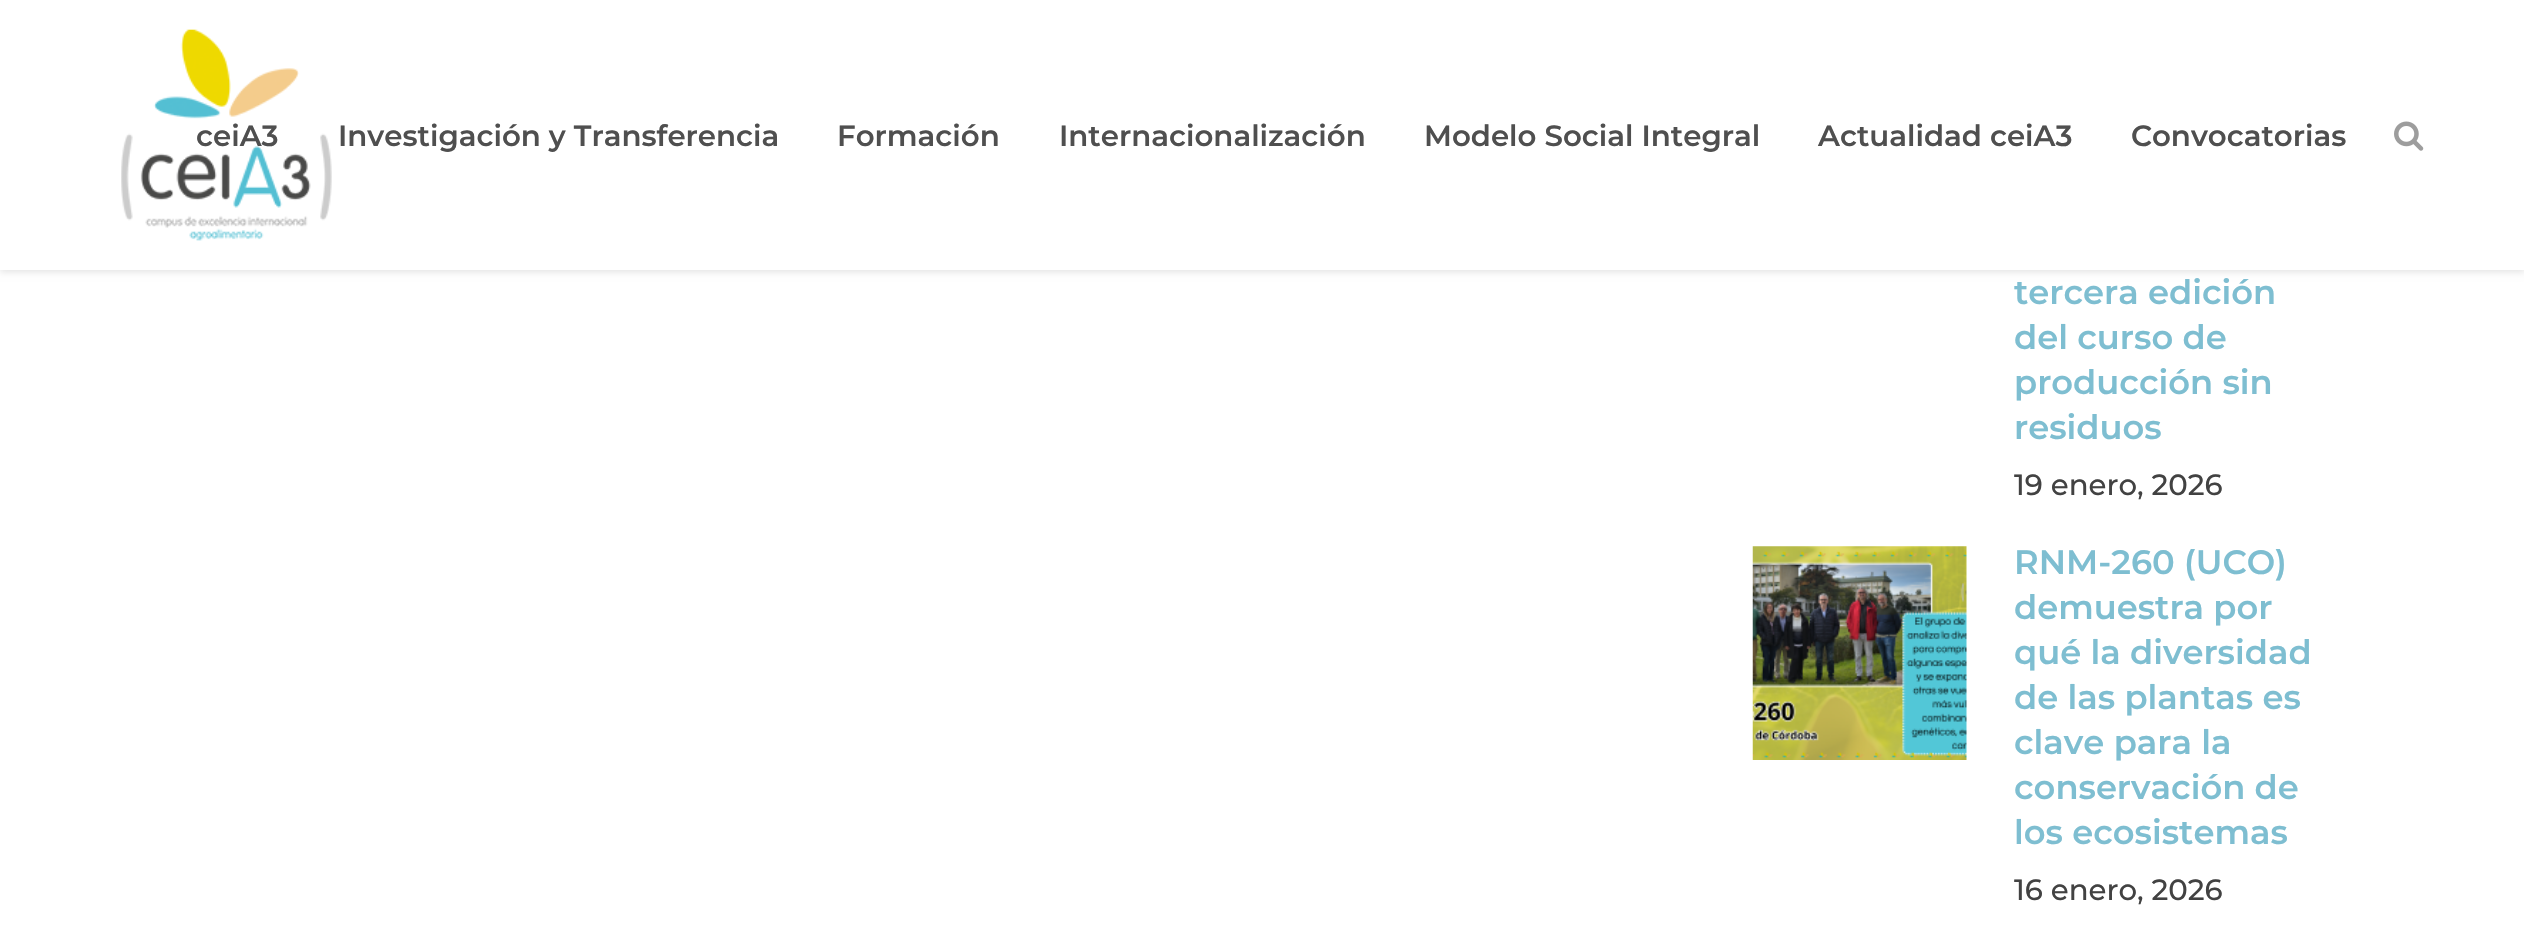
#include "include/core/SkBlurTypes.h"
#include "include/core/SkCanvas.h"
#include "include/core/SkData.h"
#include "include/core/SkFont.h"
#include "include/core/SkFontMgr.h"
#include "include/core/SkImage.h"
#include "include/core/SkMaskFilter.h"
#include "include/core/SkPaint.h"
#include "include/core/SkPathBuilder.h"
#include "include/core/SkTextBlob.h"
#include "include/effects/SkDashPathEffect.h"
#include "include/effects/SkGradientShader.h"
#include "include/utils/SkParsePath.h"

extern sk_sp<SkFontMgr> fontMgr;

static SkFont font(const char* family, int weight, float size, bool italic = false) {
    SkFontStyle style(weight, SkFontStyle::kNormal_Width,
        italic ? SkFontStyle::kItalic_Slant : SkFontStyle::kUpright_Slant);
    SkFont result(fontMgr->matchFamilyStyle(family, style), size);
    result.setSubpixel(true);
    return result;
}

static void drawLabel(SkCanvas* canvas, const char* s, float x, float y, const SkFont& font, SkColor color) {
    SkPaint ink(SkColor4f::FromColor(color));
    ink.setAntiAlias(true);
    canvas->drawString(s, x, y, font, ink);
}

static void fillRect(SkCanvas* canvas, float x, float y, float w, float h, SkColor color) {
    SkPaint ink(SkColor4f::FromColor(color));
    ink.setAntiAlias(true);
    canvas->drawRect(SkRect::MakeXYWH(x, y, w, h), ink);
}

static void drawPhoto(SkCanvas* canvas, const char* path, float x, float y, float w, float h) {
    auto image = SkImages::DeferredFromEncodedData(SkData::MakeFromFileName(path));
    canvas->drawImageRect(image, SkRect::MakeXYWH(x, y, w, h), SkSamplingOptions());
}

void draw(SkCanvas* canvas) {
    SkPaint paint;
    paint.setAntiAlias(true);
    canvas->clear(0xFFFFFFFF);
    paint.setColor(0x1C000000);
    paint.setMaskFilter(SkMaskFilter::MakeBlur(kNormal_SkBlurStyle, 3.5f));
    canvas->drawRect(SkRect::MakeXYWH(0, 2, 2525, 270), paint);
    paint.setMaskFilter(nullptr);
    fillRect(canvas, 0, 0, 2524, 270, 0xFFFFFFFF);
    drawPhoto(canvas, "assets/img1.png", 121, 29, 211, 212);
    drawPhoto(canvas, "assets/img2.png", 2394, 121, 30, 30);
    SkFont font1 = font("Montserrat", 600, 29.25f);
    drawLabel(canvas, "ceiA3", 196, 146, font1, 0xFF4F4F4F);
    drawLabel(canvas, "Investigación y Transferencia", 338, 146, font1, 0xFF4F4F4F);
    drawLabel(canvas, "Formación", 837, 146, font1, 0xFF4F4F4F);
    drawLabel(canvas, "Internacionalización", 1059, 146, font1, 0xFF4F4F4F);
    drawLabel(canvas, "Modelo Social Integral", 1424, 146, font1, 0xFF4F4F4F);
    drawLabel(canvas, "Actualidad ceiA3", 1818, 146, font1, 0xFF4F4F4F);
    drawLabel(canvas, "Convocatorias", 2131, 146, font1, 0xFF4F4F4F);
    SkFont font2 = font("Montserrat", 600, 33.75f);
    drawLabel(canvas, "tercera edición", 2014, 304, font2, 0xFF7EBED1);
    drawLabel(canvas, "del curso de", 2014, 349, font2, 0xFF7EBED1);
    drawLabel(canvas, "producción sin", 2014, 394, font2, 0xFF7EBED1);
    drawLabel(canvas, "residuos", 2014, 439, font2, 0xFF7EBED1);
    SkFont font3 = font("Montserrat", 500, 29.25f);
    drawLabel(canvas, "19 enero, 2026", 2014, 495, font3, 0xFF424242);
    drawPhoto(canvas, "assets/img3.png", 1752, 546, 215, 214);
    drawLabel(canvas, "RNM-260 (UCO)", 2014, 574, font2, 0xFF7EBED1);
    drawLabel(canvas, "demuestra por", 2014, 619, font2, 0xFF7EBED1);
    drawLabel(canvas, "qué la diversidad", 2014, 664, font2, 0xFF7EBED1);
    drawLabel(canvas, "de las plantas es", 2014, 709, font2, 0xFF7EBED1);
    drawLabel(canvas, "clave para la", 2014, 754, font2, 0xFF7EBED1);
    drawLabel(canvas, "conservación de", 2014, 799, font2, 0xFF7EBED1);
    drawLabel(canvas, "los ecosistemas", 2014, 844, font2, 0xFF7EBED1);
    drawLabel(canvas, "16 enero, 2026", 2014, 900, font3, 0xFF424242);
}
